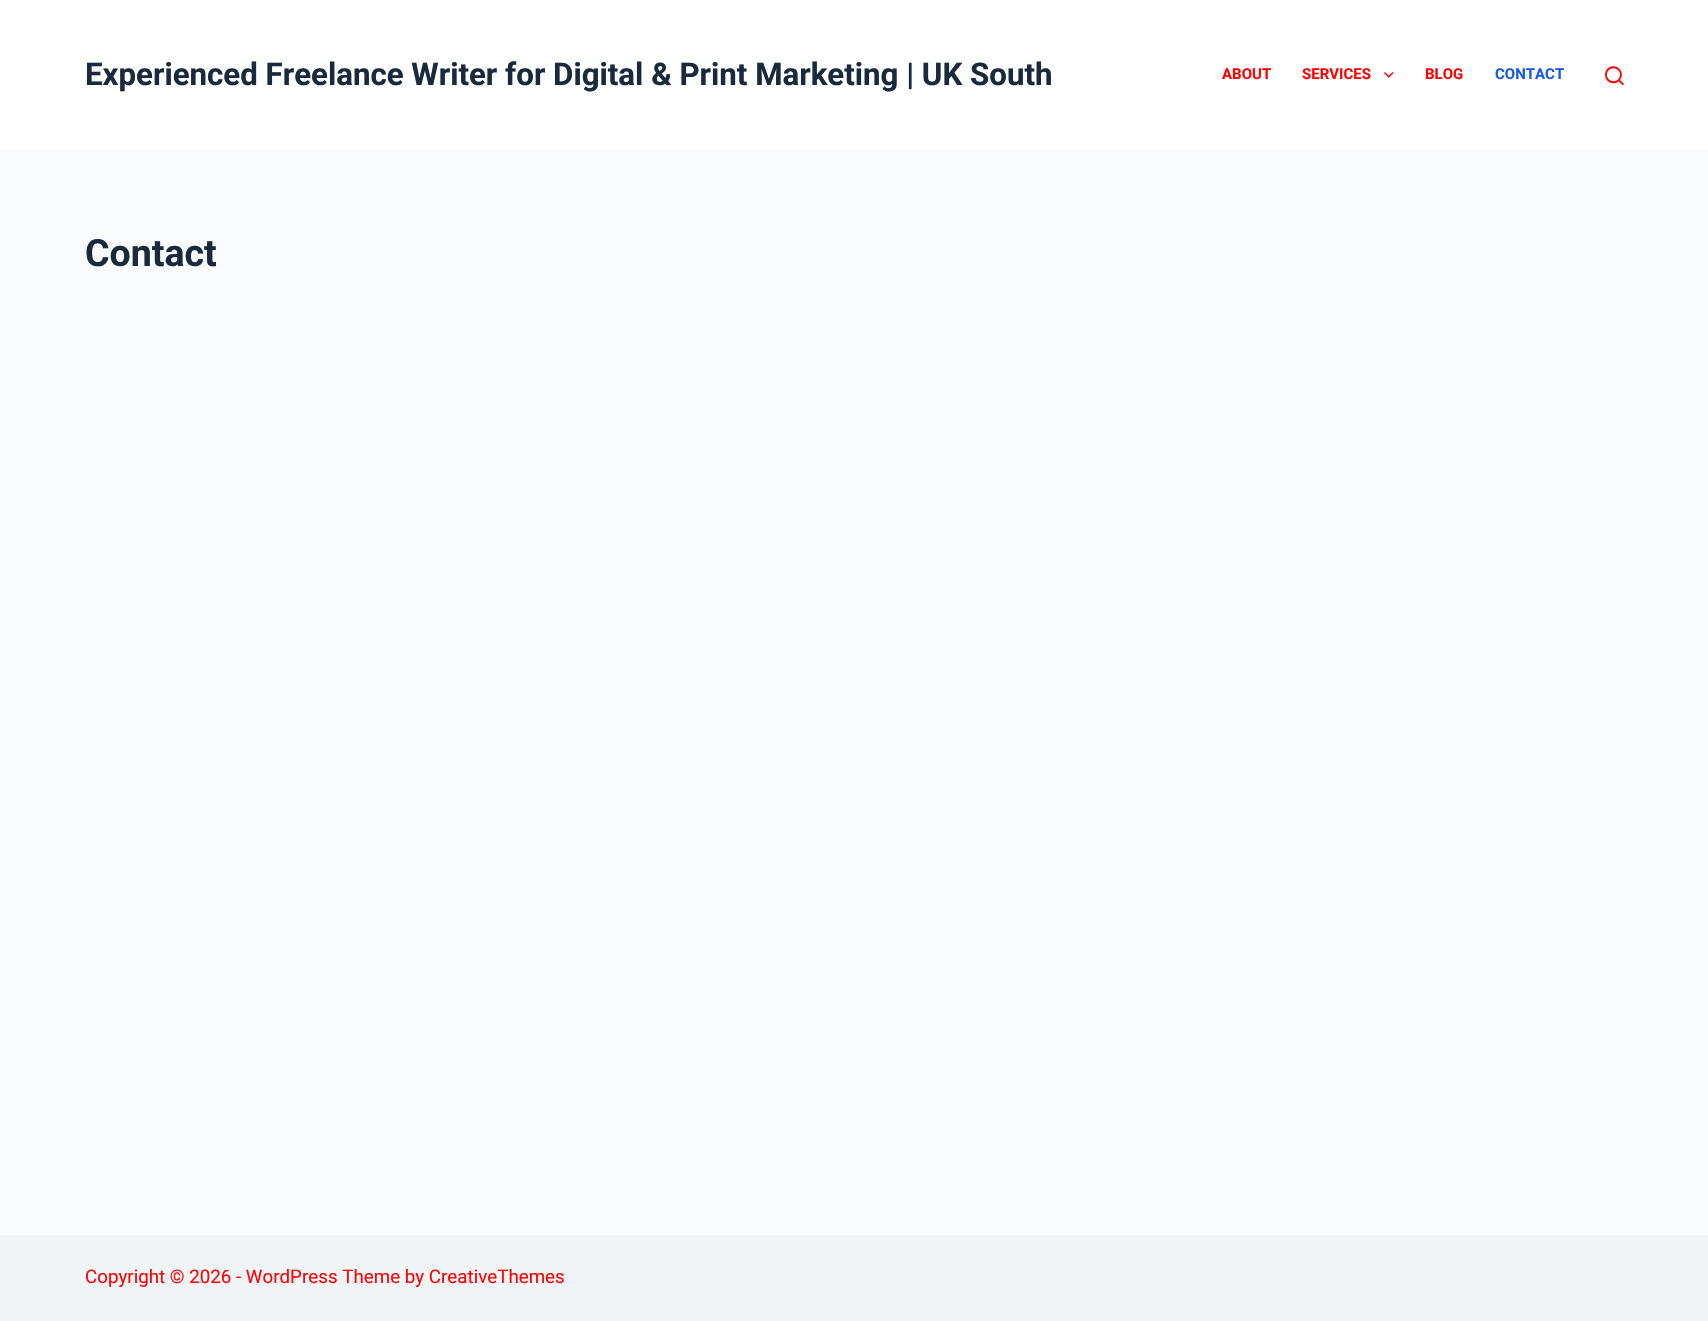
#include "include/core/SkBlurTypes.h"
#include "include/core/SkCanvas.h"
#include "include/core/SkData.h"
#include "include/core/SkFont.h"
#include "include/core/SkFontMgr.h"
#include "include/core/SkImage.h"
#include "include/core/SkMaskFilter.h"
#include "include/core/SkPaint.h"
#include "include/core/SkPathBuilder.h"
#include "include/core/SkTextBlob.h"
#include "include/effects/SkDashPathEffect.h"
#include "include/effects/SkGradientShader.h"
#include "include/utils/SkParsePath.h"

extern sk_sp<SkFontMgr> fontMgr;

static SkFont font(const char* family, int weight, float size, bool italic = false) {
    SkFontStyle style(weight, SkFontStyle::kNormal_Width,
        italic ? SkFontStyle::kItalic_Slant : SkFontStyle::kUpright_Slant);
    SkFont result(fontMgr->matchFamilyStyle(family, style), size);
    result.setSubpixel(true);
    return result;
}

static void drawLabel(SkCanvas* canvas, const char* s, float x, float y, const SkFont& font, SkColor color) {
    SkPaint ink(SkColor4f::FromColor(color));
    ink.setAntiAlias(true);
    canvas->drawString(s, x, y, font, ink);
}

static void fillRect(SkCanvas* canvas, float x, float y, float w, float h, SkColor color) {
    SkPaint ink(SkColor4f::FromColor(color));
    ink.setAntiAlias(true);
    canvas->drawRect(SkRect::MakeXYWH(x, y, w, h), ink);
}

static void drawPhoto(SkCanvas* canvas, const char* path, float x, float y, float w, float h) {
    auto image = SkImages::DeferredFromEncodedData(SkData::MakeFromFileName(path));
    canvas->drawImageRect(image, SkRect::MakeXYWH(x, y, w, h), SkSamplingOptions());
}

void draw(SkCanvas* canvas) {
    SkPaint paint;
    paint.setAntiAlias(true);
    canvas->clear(0xFFFAFBFC);
    fillRect(canvas, 0, 0, 1708, 150, 0xFFFFFFFF);
    SkFont font1 = font("Roboto", 700, 31.25f);
    drawLabel(canvas, "Experienced Freelance Writer for Digital & Print Marketing | UK South", 85, 85, font1, 0xFF192A3D);
    SkFont font2 = font("Roboto", 700, 15);
    drawLabel(canvas, "ABOUT", 1222, 79, font2, 0xFFFF0303);
    drawLabel(canvas, "SERVICES", 1302, 79, font2, 0xFFFF0303);
    drawPhoto(canvas, "assets/img1.png", 1384, 72, 10, 6);
    drawLabel(canvas, "BLOG", 1425, 79, font2, 0xFFFF0303);
    drawLabel(canvas, "CONTACT", 1495, 79, font2, 0xFF1559ED);
    drawPhoto(canvas, "assets/img2.png", 1605, 66, 19, 19);
    SkFont font3 = font("Roboto", 700, 37.5f);
    drawLabel(canvas, "Contact", 85, 266, font3, 0xFF192A3D);
    fillRect(canvas, 0, 1235, 1708, 86, 0xFFF2F5F7);
    SkFont font4 = font("Roboto", 400, 18.75f);
    drawLabel(canvas, "Copyright © 2026 - WordPress Theme by CreativeThemes", 85, 1283, font4, 0xFFFF0303);
}
